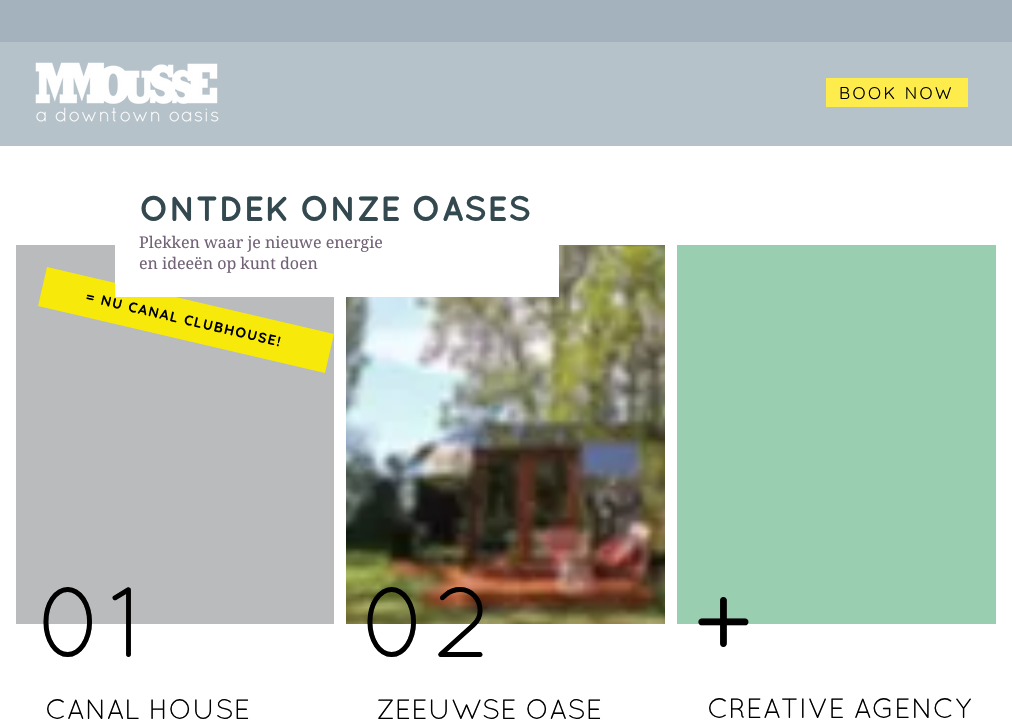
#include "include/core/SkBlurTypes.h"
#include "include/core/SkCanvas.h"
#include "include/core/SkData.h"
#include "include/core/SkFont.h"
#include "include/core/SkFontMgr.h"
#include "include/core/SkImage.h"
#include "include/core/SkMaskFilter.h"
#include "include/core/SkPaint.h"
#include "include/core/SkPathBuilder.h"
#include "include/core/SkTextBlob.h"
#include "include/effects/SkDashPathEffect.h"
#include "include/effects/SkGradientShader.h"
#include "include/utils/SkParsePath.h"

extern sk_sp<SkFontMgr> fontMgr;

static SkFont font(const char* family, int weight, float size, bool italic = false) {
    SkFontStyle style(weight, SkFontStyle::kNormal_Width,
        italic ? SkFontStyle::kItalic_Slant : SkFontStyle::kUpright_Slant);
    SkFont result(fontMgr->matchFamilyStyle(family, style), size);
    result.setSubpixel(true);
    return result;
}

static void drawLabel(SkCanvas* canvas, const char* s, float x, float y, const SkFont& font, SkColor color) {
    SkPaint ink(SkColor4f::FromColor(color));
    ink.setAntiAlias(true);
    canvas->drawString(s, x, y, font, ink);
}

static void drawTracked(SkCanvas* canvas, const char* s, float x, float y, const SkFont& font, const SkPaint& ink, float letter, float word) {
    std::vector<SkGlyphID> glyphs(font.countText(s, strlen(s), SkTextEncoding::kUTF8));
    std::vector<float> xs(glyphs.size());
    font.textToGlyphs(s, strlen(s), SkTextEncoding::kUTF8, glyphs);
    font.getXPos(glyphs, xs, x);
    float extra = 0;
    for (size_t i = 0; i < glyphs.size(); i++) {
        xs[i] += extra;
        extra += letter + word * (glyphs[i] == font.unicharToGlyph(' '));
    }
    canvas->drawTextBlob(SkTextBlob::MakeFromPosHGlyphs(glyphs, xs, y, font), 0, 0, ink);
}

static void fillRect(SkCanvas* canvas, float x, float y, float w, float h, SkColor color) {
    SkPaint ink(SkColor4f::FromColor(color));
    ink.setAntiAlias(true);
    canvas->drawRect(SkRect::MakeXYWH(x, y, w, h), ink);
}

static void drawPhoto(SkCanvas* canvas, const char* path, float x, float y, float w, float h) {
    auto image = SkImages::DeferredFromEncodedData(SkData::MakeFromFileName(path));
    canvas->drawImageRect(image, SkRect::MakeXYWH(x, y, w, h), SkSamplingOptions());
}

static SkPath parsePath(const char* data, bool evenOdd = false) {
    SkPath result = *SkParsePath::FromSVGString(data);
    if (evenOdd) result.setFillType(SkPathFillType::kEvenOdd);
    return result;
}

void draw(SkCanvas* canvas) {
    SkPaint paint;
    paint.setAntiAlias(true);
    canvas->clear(0xFFFFFFFF);
    fillRect(canvas, 0, 42, 1012, 104, 0xFFB6C2CA);
    fillRect(canvas, 0, 0, 1012, 42, 0xFFA4B2BD);
    drawPhoto(canvas, "assets/img1.png", 35, 62, 184, 60);
    fillRect(canvas, 826, 78, 142, 29, 0xFFFEEB4C);
    SkFont font1 = font("Quicksand", 400, 17);
    paint.setColor(0xFF000000);
    drawTracked(canvas, "BOOK NOW", 839, 99, font1, paint, 2.5f, 0);
    SkFont font2 = font("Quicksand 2", 700, 35);
    drawLabel(canvas, "ONTDEK ONZE OASES", 139, 221, font2, 0xFF34494F);
    fillRect(canvas, 16, 245, 318, 379, 0xFFB9BBBD);
    paint.setColor(0xFFF7E90A);
    canvas->drawPath(parsePath("M47 267L334 334L325 373L38 306Z"), paint);
    SkFont font3 = font("Quicksand", 700, 14);
    paint.setColor(0xFF000000);
    canvas->save();
    canvas->rotate(13.2f, 85, 301);
    drawTracked(canvas, "= NU CANAL CLUBHOUSE!", 85, 301, font3, paint, 1.4f, 0);
    canvas->restore();
    drawPhoto(canvas, "assets/img2.png", 346, 245, 319, 379);
    fillRect(canvas, 115, 245, 444, 52, 0xFFFFFFFF);
    SkFont font4 = font("Droid Serif", 400, 16);
    drawLabel(canvas, "Plekken waar je nieuwe energie", 139, 248, font4, 0xFF726277);
    drawLabel(canvas, "en ideeën op kunt doen", 139, 269, font4, 0xFF726277);
    SkFont font5 = font("Quicksand 2", 400, 100);
    drawLabel(canvas, "01", 37, 657, font5, 0xFF000000);
    SkFont font6 = font("Quicksand 2", 400, 28);
    drawLabel(canvas, "CANAL HOUSE", 45, 719, font6, 0xFF000000);
    drawLabel(canvas, "02", 361, 657, font5, 0xFF000000);
    drawLabel(canvas, "ZEEUWSE OASE", 376, 719, font6, 0xFF000000);
    fillRect(canvas, 677, 245, 319, 379, 0xFF99CFB0);
    drawLabel(canvas, "+", 692, 657, font5, 0xFF000000);
    drawLabel(canvas, "CREATIVE AGENCY", 707, 718, font6, 0xFF000000);
}
